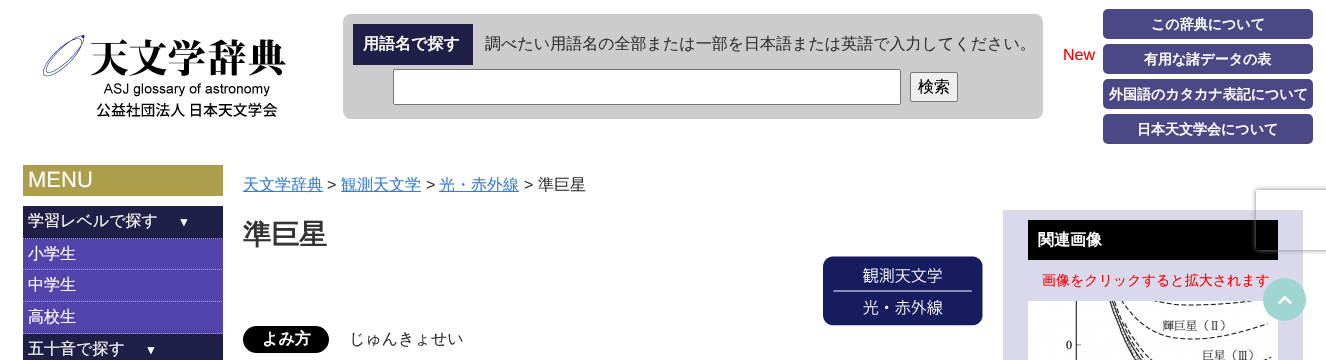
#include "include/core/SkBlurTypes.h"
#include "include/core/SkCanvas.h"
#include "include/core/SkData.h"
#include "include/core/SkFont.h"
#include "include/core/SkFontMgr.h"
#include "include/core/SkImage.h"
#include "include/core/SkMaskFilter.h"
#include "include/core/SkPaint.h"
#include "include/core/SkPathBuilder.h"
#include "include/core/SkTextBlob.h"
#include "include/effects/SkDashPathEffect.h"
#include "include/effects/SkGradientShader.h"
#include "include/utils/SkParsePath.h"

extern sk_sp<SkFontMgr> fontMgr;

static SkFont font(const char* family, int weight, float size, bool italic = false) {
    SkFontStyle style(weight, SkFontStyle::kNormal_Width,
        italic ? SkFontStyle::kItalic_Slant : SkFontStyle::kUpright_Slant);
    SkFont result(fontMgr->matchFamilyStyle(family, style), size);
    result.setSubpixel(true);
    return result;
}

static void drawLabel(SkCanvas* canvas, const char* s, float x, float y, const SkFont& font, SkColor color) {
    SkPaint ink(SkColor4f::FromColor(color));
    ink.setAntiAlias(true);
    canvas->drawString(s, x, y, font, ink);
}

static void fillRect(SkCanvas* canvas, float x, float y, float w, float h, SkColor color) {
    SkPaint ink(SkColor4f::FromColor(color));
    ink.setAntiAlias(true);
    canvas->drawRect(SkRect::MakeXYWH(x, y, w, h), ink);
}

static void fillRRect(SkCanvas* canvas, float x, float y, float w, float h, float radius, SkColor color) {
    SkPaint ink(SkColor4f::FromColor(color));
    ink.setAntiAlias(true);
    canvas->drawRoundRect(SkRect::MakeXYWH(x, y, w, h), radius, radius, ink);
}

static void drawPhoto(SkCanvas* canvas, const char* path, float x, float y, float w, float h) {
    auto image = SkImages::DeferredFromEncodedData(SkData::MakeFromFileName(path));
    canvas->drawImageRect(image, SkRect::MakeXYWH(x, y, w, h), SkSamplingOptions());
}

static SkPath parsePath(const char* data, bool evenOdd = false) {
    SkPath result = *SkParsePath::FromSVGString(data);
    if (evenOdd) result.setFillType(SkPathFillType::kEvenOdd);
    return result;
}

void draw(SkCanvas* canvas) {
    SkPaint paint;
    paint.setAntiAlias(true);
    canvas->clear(0xFFFFFFFF);
    drawPhoto(canvas, "assets/img1.png", 43, 35, 243, 82);
    fillRRect(canvas, 343, 14, 700, 105, 8, 0xFFCCCCCC);
    fillRect(canvas, 353, 24, 120, 41, 0xFF1F1F47);
    SkFont font1 = font("WenQuanYi Zen Hei", 700, 16);
    drawLabel(canvas, "用語名で探す", 363, 49, font1, 0xFFFFFFFF);
    SkFont font2 = font("WenQuanYi Zen Hei", 500, 16);
    drawLabel(canvas, "調べたい用語名の全部または一部を日本語または英語で入力してください。", 485, 49, font2, 0xFF333333);
    paint.setColor(0xFFFFFFFF);
    canvas->drawRoundRect(SkRect::MakeXYWH(393.5f, 69.5f, 507, 35), 1.5f, 1.5f, paint);
    paint.setStroke(true);
    paint.setStrokeWidth(1);
    paint.setColor(0xFF767676);
    canvas->drawRoundRect(SkRect::MakeXYWH(393.5f, 69.5f, 507, 35), 1.5f, 1.5f, paint);
    paint.setStroke(false);
    paint.setColor(0xFFEFEFEF);
    canvas->drawRoundRect(SkRect::MakeXYWH(910.5f, 72.5f, 47, 29), 1.5f, 1.5f, paint);
    paint.setStroke(true);
    paint.setColor(0xFF767676);
    canvas->drawRoundRect(SkRect::MakeXYWH(910.5f, 72.5f, 47, 29), 1.5f, 1.5f, paint);
    drawLabel(canvas, "検索", 918, 92, font2, 0xFF000000);
    SkFont font3 = font("Liberation Sans", 400, 16);
    drawLabel(canvas, "New", 1063, 60, font3, 0xFFFF0000);
    fillRRect(canvas, 1103, 9, 210, 30, 5, 0xFF4A4885);
    SkFont font4 = font("WenQuanYi Zen Hei", 700, 14);
    drawLabel(canvas, "この辞典について", 1151, 29, font4, 0xFFFFFFFF);
    fillRRect(canvas, 1103, 44, 210, 30, 5, 0xFF4A4885);
    drawLabel(canvas, "有用な諸データの表", 1144, 64, font4, 0xFFFFFFFF);
    fillRRect(canvas, 1103, 79, 210, 30, 5, 0xFF4A4885);
    drawLabel(canvas, "外国語のカタカナ表記について", 1109, 99, font4, 0xFFFFFFFF);
    fillRRect(canvas, 1103, 114, 210, 30, 5, 0xFF4A4885);
    drawLabel(canvas, "日本天文学会について", 1137, 134, font4, 0xFFFFFFFF);
    fillRect(canvas, 23, 165, 200, 31, 0xFFAD9E4C);
    SkFont font5 = font("Liberation Sans", 400, 22);
    drawLabel(canvas, "MENU", 28, 187, font5, 0xFFFFFFFF);
    fillRect(canvas, 23, 206, 200, 33, 0xFF1F1F47);
    paint.setColor(0xFFA9A9A9);
    paint.setPathEffect(SkDashPathEffect::Make({{1, 1}}, 0));
    canvas->drawPath(parsePath("M23 238.5H223"), paint);
    paint.setPathEffect(nullptr);
    drawLabel(canvas, "学習レベルで探す", 28, 226, font2, 0xFFFFFFFF);
    SkFont font6 = font("Liberation Sans", 400, 12);
    drawLabel(canvas, "▼", 178, 226, font6, 0xFFFFFFFF);
    fillRect(canvas, 23, 239, 200, 95, 0xFF5244AB);
    paint.setPathEffect(SkDashPathEffect::Make({{1, 1}}, 0));
    canvas->drawPath(parsePath("M23 269.5H223"), paint);
    paint.setPathEffect(nullptr);
    drawLabel(canvas, "小学生", 28, 259, font2, 0xFFFFFFFF);
    paint.setPathEffect(SkDashPathEffect::Make({{1, 1}}, 0));
    canvas->drawPath(parsePath("M23 301.5H223"), paint);
    paint.setPathEffect(nullptr);
    drawLabel(canvas, "中学生", 28, 290, font2, 0xFFFFFFFF);
    paint.setPathEffect(SkDashPathEffect::Make({{1, 1}}, 0));
    canvas->drawPath(parsePath("M23 333.5H223"), paint);
    paint.setPathEffect(nullptr);
    drawLabel(canvas, "高校生", 28, 322, font2, 0xFFFFFFFF);
    fillRect(canvas, 23, 334, 200, 26, 0xFF1F1F47);
    drawLabel(canvas, "五十音で探す", 28, 354, font2, 0xFFFFFFFF);
    drawLabel(canvas, "▼", 145, 354, font6, 0xFFFFFFFF);
    fillRect(canvas, 243, 191, 80, 1, 0xFF3A7FCF);
    drawLabel(canvas, "天文学辞典", 243, 190, font2, 0xFF3A7FCF);
    drawLabel(canvas, ">", 327, 190, font3, 0xFF333333);
    fillRect(canvas, 341, 191, 80, 1, 0xFF3A7FCF);
    drawLabel(canvas, "観測天文学", 341, 190, font2, 0xFF3A7FCF);
    drawLabel(canvas, ">", 426, 190, font3, 0xFF333333);
    fillRect(canvas, 439, 191, 80, 1, 0xFF3A7FCF);
    drawLabel(canvas, "光・赤外線", 439, 190, font2, 0xFF3A7FCF);
    drawLabel(canvas, ">", 524, 190, font3, 0xFF333333);
    drawLabel(canvas, "準巨星", 538, 190, font2, 0xFF333333);
    SkFont font7 = font("WenQuanYi Zen Hei", 700, 28);
    drawLabel(canvas, "準巨星", 243, 244, font7, 0xFF333333);
    drawPhoto(canvas, "assets/img2.png", 823, 256, 160, 70);
    fillRRect(canvas, 243, 326, 86, 27, 13.5f, 0xFF000000);
    drawLabel(canvas, "よみ方", 262, 344, font1, 0xFFFFFFFF);
    drawLabel(canvas, "じゅんきょせい", 349, 344, font2, 0xFF333333);
    fillRect(canvas, 1003, 210, 300, 150, 0xFFDAD9EB);
    fillRect(canvas, 1028, 220, 250, 40, 0xFF000000);
    drawLabel(canvas, "関連画像", 1038, 245, font1, 0xFFFFFFFF);
    SkFont font8 = font("WenQuanYi Zen Hei", 500, 14);
    drawLabel(canvas, "画像をクリックすると拡大されます", 1042, 285, font8, 0xFFFF0000);
    drawPhoto(canvas, "assets/img3.png", 1028, 301, 250, 59);
    paint.setStroke(false);
    paint.setColor(0xFF9FD6D2);
    canvas->drawCircle(1284.5f, 299.5f, 21.5f, paint);
    drawPhoto(canvas, "assets/img4.png", 1278, 296, 14, 9);
    canvas->save();
    canvas->clipPath(parsePath("M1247 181H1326V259H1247ZM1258 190H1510C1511 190 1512 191 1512 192V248C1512 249 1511 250 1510 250H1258C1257 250 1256 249 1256 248V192C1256 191 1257 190 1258 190Z", true), true);
    paint.setColor(0xFF808080);
    paint.setMaskFilter(SkMaskFilter::MakeBlur(kNormal_SkBlurStyle, 2.5f));
    canvas->drawRoundRect(SkRect::MakeXYWH(1256, 190, 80, 60), 2, 2, paint);
    paint.setMaskFilter(nullptr);
    canvas->restore();
}
